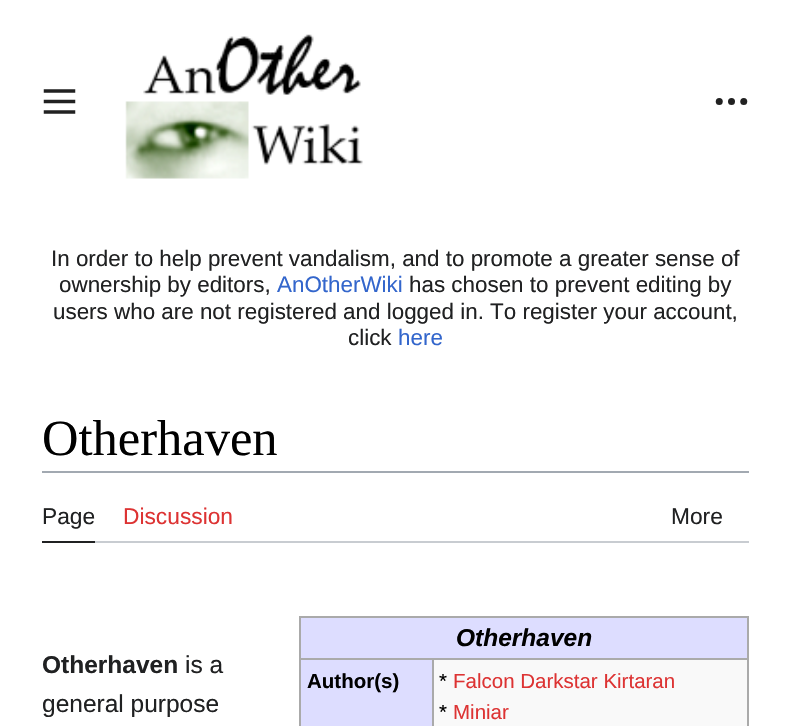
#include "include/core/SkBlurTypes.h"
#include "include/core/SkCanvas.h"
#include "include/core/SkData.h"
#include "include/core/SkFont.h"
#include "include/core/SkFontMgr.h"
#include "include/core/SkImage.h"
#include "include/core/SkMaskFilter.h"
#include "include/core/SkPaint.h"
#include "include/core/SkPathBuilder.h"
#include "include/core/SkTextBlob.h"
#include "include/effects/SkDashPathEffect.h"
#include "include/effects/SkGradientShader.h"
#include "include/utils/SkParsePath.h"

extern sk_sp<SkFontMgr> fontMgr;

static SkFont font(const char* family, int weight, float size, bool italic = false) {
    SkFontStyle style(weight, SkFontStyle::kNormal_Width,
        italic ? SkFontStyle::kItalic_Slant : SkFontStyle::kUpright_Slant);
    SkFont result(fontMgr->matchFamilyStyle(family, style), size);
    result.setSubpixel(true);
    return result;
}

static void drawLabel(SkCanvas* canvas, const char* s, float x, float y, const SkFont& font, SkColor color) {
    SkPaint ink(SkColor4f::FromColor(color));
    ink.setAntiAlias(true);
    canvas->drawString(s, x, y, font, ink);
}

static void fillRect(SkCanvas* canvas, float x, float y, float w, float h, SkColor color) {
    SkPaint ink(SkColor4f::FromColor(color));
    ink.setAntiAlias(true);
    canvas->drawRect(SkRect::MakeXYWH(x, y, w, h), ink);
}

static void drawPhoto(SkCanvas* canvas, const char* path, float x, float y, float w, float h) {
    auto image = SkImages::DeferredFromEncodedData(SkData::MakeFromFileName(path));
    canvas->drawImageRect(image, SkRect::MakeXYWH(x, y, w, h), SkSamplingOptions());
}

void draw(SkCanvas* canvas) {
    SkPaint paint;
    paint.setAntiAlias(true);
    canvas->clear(0xFFFFFFFF);
    drawPhoto(canvas, "assets/img1.png", 43, 89, 33, 25);
    drawPhoto(canvas, "assets/img2.png", 125, 34, 238, 145);
    drawPhoto(canvas, "assets/img3.png", 715, 98, 33, 7);
    SkFont font1 = font("Liberation Sans", 400, 22.4f);
    drawLabel(canvas, "In order to help prevent vandalism, and to promote a greater sense of", 51, 266, font1, 0xFF202122);
    drawLabel(canvas, "ownership by editors,", 59, 292, font1, 0xFF202122);
    drawLabel(canvas, "AnOtherWiki", 277, 292, font1, 0xFF3366CC);
    drawLabel(canvas, "has chosen to prevent editing by", 409, 292, font1, 0xFF202122);
    drawLabel(canvas, "users who are not registered and logged in. To register your account,", 53, 319, font1, 0xFF202122);
    drawLabel(canvas, "click", 348, 345, font1, 0xFF202122);
    drawLabel(canvas, "here", 398, 345, font1, 0xFF3366CC);
    fillRect(canvas, 42, 471, 707, 2, 0xFFA2A9B1);
    SkFont font2 = font("Liberation Serif", 400, 50.5f);
    drawLabel(canvas, "Otherhaven", 42, 455, font2, 0xFF000000);
    fillRect(canvas, 95, 541, 654, 2, 0xFFC8CCD1);
    fillRect(canvas, 42, 541, 53, 2, 0xFF202122);
    SkFont font3 = font("Liberation Sans", 400, 22.75f);
    drawLabel(canvas, "Page", 42, 524, font3, 0xFF202122);
    drawLabel(canvas, "Discussion", 123, 524, font3, 0xFFDD3333);
    drawLabel(canvas, "More", 671, 524, font3, 0xFF202122);
    SkFont font4 = font("Liberation Sans", 700, 24.5f);
    drawLabel(canvas, "Otherhaven", 42, 673, font4, 0xFF202122);
    SkFont font5 = font("Liberation Sans", 400, 24.5f);
    drawLabel(canvas, "is a", 185, 673, font5, 0xFF202122);
    drawLabel(canvas, "general purpose", 42, 712, font5, 0xFF202122);
    fillRect(canvas, 434, 660, 313, 66, 0xFFF9F9F9);
    fillRect(canvas, 299, 616, 450, 2, 0xFFAAAAAA);
    fillRect(canvas, 747, 616, 2, 110, 0xFFAAAAAA);
    fillRect(canvas, 299, 616, 2, 110, 0xFFAAAAAA);
    fillRect(canvas, 301, 618, 446, 40, 0xFFDDDDFF);
    SkFont font6 = font("Liberation Sans", 700, 24.5f, true);
    drawLabel(canvas, "Otherhaven", 456, 646, font6, 0xFF000000);
    fillRect(canvas, 301, 660, 131, 66, 0xFFDDDDFF);
    fillRect(canvas, 432, 658, 317, 2, 0xFFAAAAAA);
    fillRect(canvas, 432, 658, 2, 68, 0xFFAAAAAA);
    fillRect(canvas, 299, 658, 135, 2, 0xFFAAAAAA);
    SkFont font7 = font("Liberation Sans", 700, 20.5f);
    drawLabel(canvas, "Author(s)", 307, 688, font7, 0xFF000000);
    SkFont font8 = font("Liberation Sans", 400, 20.5f);
    drawLabel(canvas, "*", 439, 688, font8, 0xFF000000);
    drawLabel(canvas, "Falcon Darkstar Kirtaran", 453, 688, font8, 0xFFDD3333);
    drawLabel(canvas, "*", 439, 719, font8, 0xFF000000);
    drawLabel(canvas, "Miniar", 453, 719, font8, 0xFFDD3333);
}
